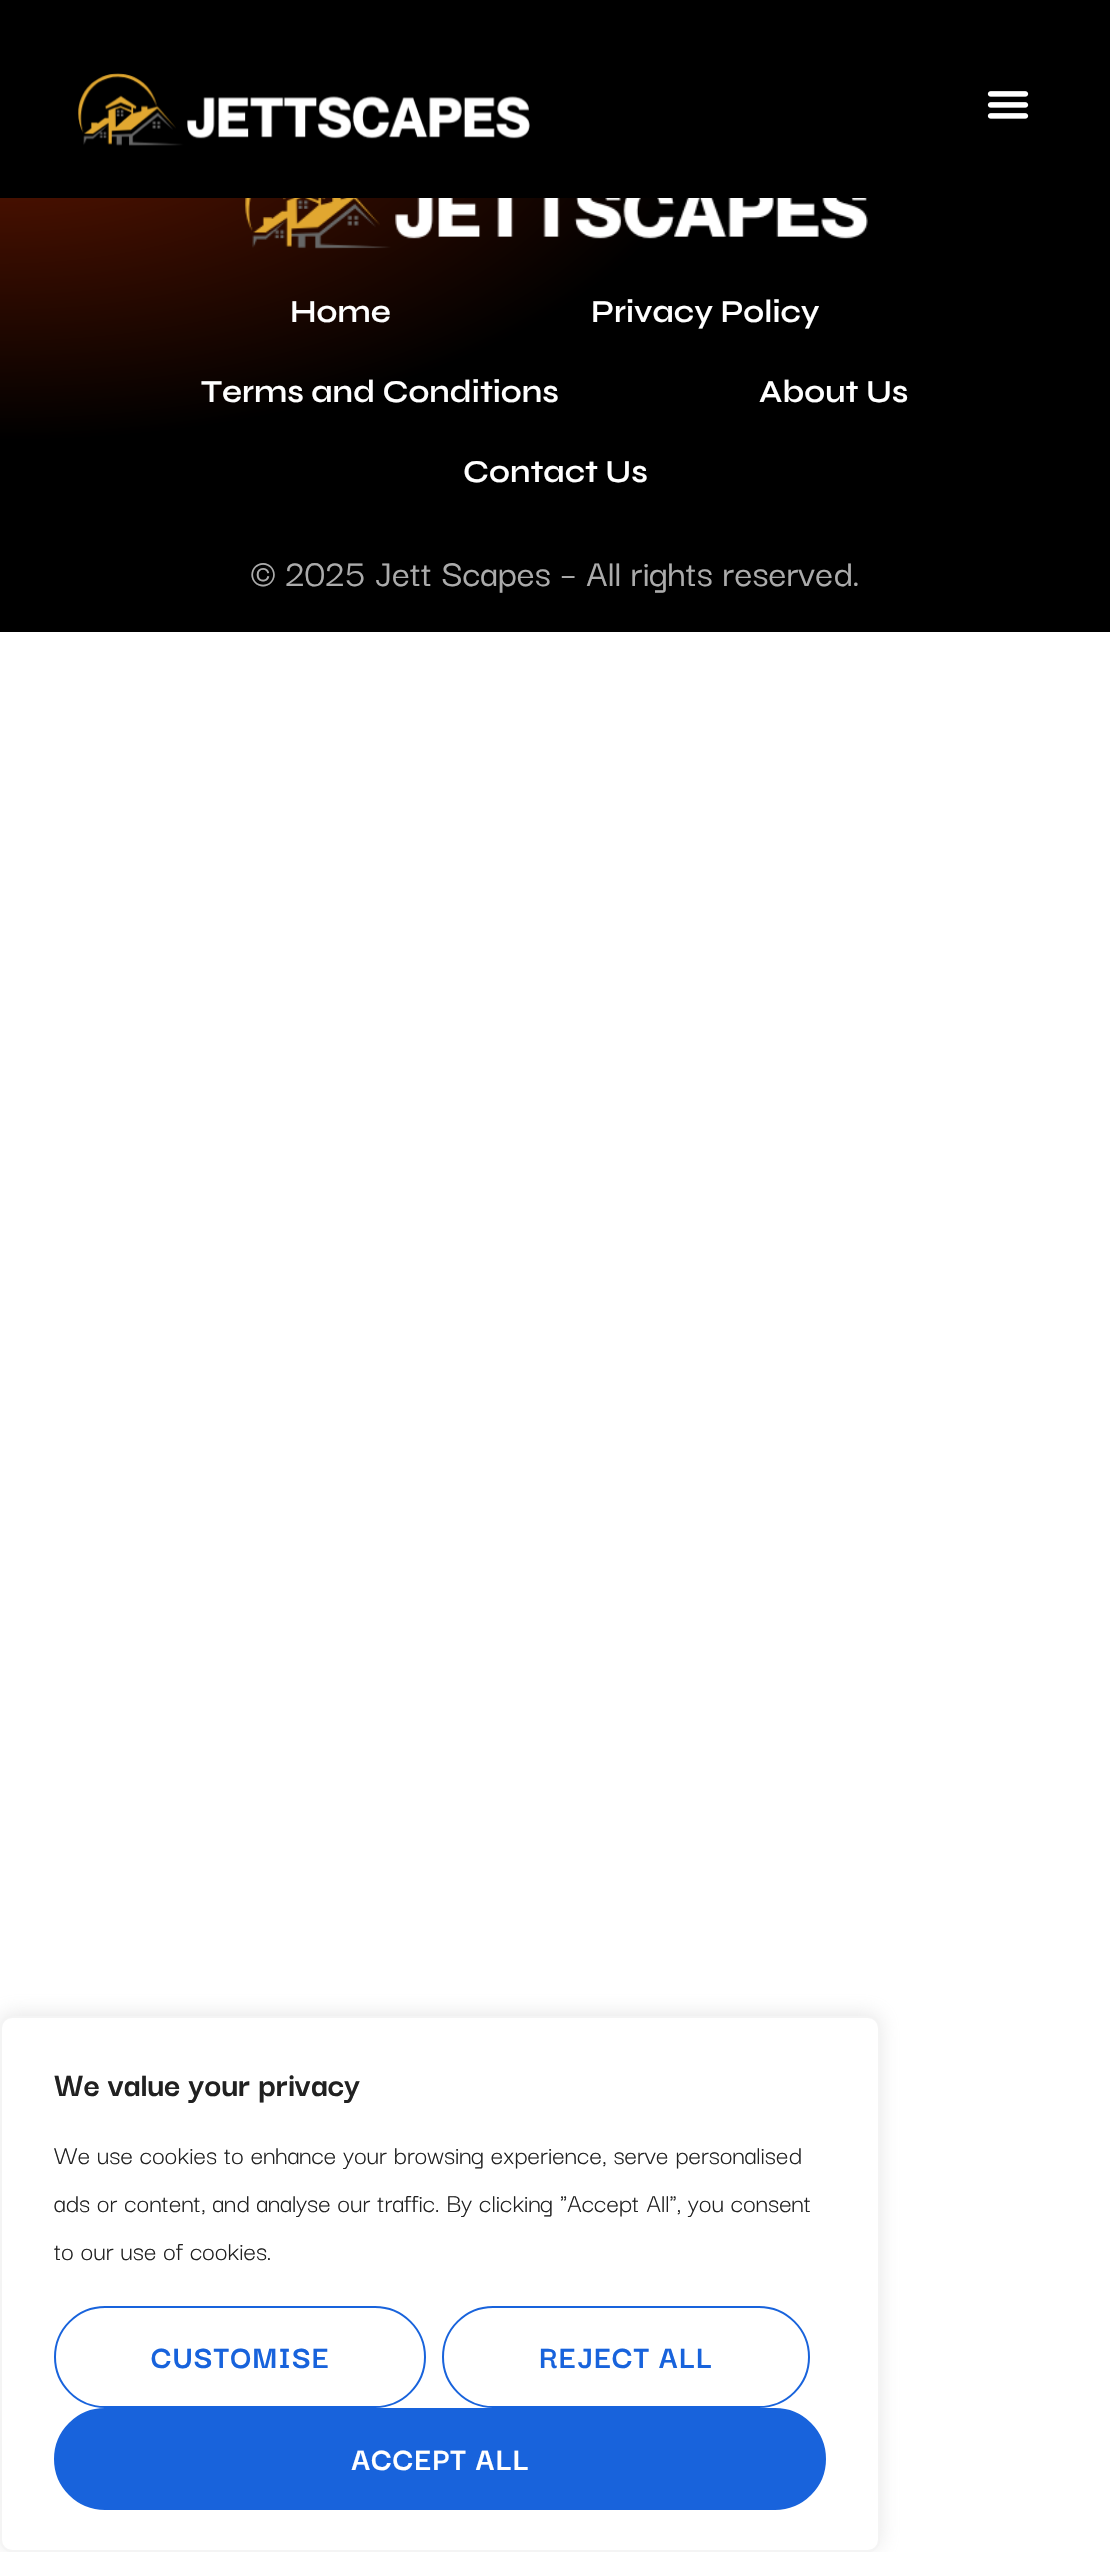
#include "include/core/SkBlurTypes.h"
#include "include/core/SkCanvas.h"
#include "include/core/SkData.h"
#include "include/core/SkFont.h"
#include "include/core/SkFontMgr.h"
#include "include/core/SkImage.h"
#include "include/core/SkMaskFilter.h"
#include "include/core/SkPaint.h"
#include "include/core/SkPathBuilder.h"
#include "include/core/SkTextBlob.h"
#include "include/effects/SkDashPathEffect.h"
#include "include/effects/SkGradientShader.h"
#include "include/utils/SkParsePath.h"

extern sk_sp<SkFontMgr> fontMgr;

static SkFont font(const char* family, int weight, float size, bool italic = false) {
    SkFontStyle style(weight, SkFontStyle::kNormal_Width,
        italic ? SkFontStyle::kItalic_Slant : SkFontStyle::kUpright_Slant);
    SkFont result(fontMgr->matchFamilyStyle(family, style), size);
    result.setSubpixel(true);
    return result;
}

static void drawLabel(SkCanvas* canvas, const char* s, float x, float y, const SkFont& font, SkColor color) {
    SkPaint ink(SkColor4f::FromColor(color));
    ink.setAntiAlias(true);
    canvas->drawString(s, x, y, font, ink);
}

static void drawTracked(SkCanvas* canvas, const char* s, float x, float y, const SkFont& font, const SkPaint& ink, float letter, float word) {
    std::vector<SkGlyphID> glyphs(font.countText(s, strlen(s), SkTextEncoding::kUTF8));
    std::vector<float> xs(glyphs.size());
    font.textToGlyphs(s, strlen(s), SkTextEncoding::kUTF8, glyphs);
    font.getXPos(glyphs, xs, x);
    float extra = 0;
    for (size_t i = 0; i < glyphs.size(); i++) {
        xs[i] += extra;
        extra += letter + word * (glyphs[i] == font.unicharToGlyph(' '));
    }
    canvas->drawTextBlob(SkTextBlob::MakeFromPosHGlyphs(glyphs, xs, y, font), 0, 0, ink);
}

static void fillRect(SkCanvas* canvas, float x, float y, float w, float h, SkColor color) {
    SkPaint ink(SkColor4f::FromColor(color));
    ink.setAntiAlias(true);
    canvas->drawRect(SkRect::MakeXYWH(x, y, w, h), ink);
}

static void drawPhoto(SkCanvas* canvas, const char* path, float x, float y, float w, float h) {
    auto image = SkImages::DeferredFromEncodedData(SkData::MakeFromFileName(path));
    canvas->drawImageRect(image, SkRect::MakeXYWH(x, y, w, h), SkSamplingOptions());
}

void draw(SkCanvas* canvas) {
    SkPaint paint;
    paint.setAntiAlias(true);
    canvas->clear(0xFFFFFFFF);
    fillRect(canvas, 0, 0, 1110, 198, 0xFF000000);
    drawPhoto(canvas, "assets/img1.png", 78, 73, 452, 73);
    drawPhoto(canvas, "assets/img2.png", 987, 91, 42, 28);
    {
        const SkColor colors[] = {0xFF651700, 0xFF000000};
        const float stops[] = {0, 0.46f};
        SkMatrix m = SkMatrix::Translate(0, 86).preScale(1570, 772);
        paint.setShader(SkGradientShader::MakeRadial({0, 0}, 1, colors, stops, 2, SkTileMode::kClamp, 0, &m));
        paint.setAlpha(255);
    }
    canvas->drawRect(SkRect::MakeXYWH(0, 198, 1110, 434), paint);
    drawPhoto(canvas, "assets/img3.png", 245, 198, 623, 51);
    SkFont font1 = font("Syne", 600, 32);
    drawLabel(canvas, "Home", 290, 322, font1, 0xFFFFFFFF);
    drawLabel(canvas, "Privacy Policy", 591, 322, font1, 0xFFFFFFFF);
    drawLabel(canvas, "Terms and Conditions", 201, 402, font1, 0xFFFFFFFF);
    drawLabel(canvas, "About Us", 759, 402, font1, 0xFFFFFFFF);
    drawLabel(canvas, "Contact Us", 463, 482, font1, 0xFFFFFFFF);
    SkFont font2 = font("Darker Grotesque", 500, 40);
    drawLabel(canvas, "© 2025 Jett Scapes – All rights reserved.", 250, 586, font2, 0xFFABABAB);
    paint.setShader(nullptr);
    paint.setColor(0x4DACABAB);
    paint.setMaskFilter(SkMaskFilter::MakeBlur(kNormal_SkBlurStyle, 10));
    canvas->drawRoundRect(SkRect::MakeXYWH(0, 2014, 880, 536), 12, 12, paint);
    paint.setMaskFilter(nullptr);
    paint.setColor(0xFFFFFFFF);
    canvas->drawRoundRect(SkRect::MakeXYWH(1, 2017, 878, 534), 11, 11, paint);
    paint.setStroke(true);
    paint.setStrokeWidth(2);
    paint.setColor(0xFFF4F4F4);
    canvas->drawRoundRect(SkRect::MakeXYWH(1, 2017, 878, 534), 11, 11, paint);
    SkFont font3 = font("Darker Grotesque", 700, 36);
    drawLabel(canvas, "We value your privacy", 54, 2096, font3, 0xFF212121);
    SkFont font4 = font("Darker Grotesque", 400, 28);
    drawLabel(canvas, "We use cookies to enhance your browsing experience, serve personalised", 54, 2164, font4, 0xFF212121);
    drawLabel(canvas, "ads or content, and analyse our traffic. By clicking \"Accept All\", you consent", 54, 2212, font4, 0xFF212121);
    drawLabel(canvas, "to our use of cookies.", 54, 2260, font4, 0xFF212121);
    paint.setColor(0xFF1863DC);
    canvas->drawRoundRect(SkRect::MakeXYWH(55, 2307, 370, 100), 50, 50, paint);
    SkFont font5 = font("Darker Grotesque", 700, 34);
    paint.setStroke(false);
    drawTracked(canvas, "CUSTOMISE", 151, 2368, font5, paint, 1, 0);
    paint.setStroke(true);
    canvas->drawRoundRect(SkRect::MakeXYWH(443, 2307, 366, 100), 50, 50, paint);
    paint.setStroke(false);
    drawTracked(canvas, "REJECT ALL", 539, 2368, font5, paint, 1, 0);
    canvas->drawRoundRect(SkRect::MakeXYWH(55, 2409, 770, 100), 50, 50, paint);
    paint.setStroke(true);
    canvas->drawRoundRect(SkRect::MakeXYWH(55, 2409, 770, 100), 50, 50, paint);
    paint.setStroke(false);
    paint.setColor(0xFFFFFFFF);
    drawTracked(canvas, "ACCEPT ALL", 351, 2470, font5, paint, 1, 0);
}
